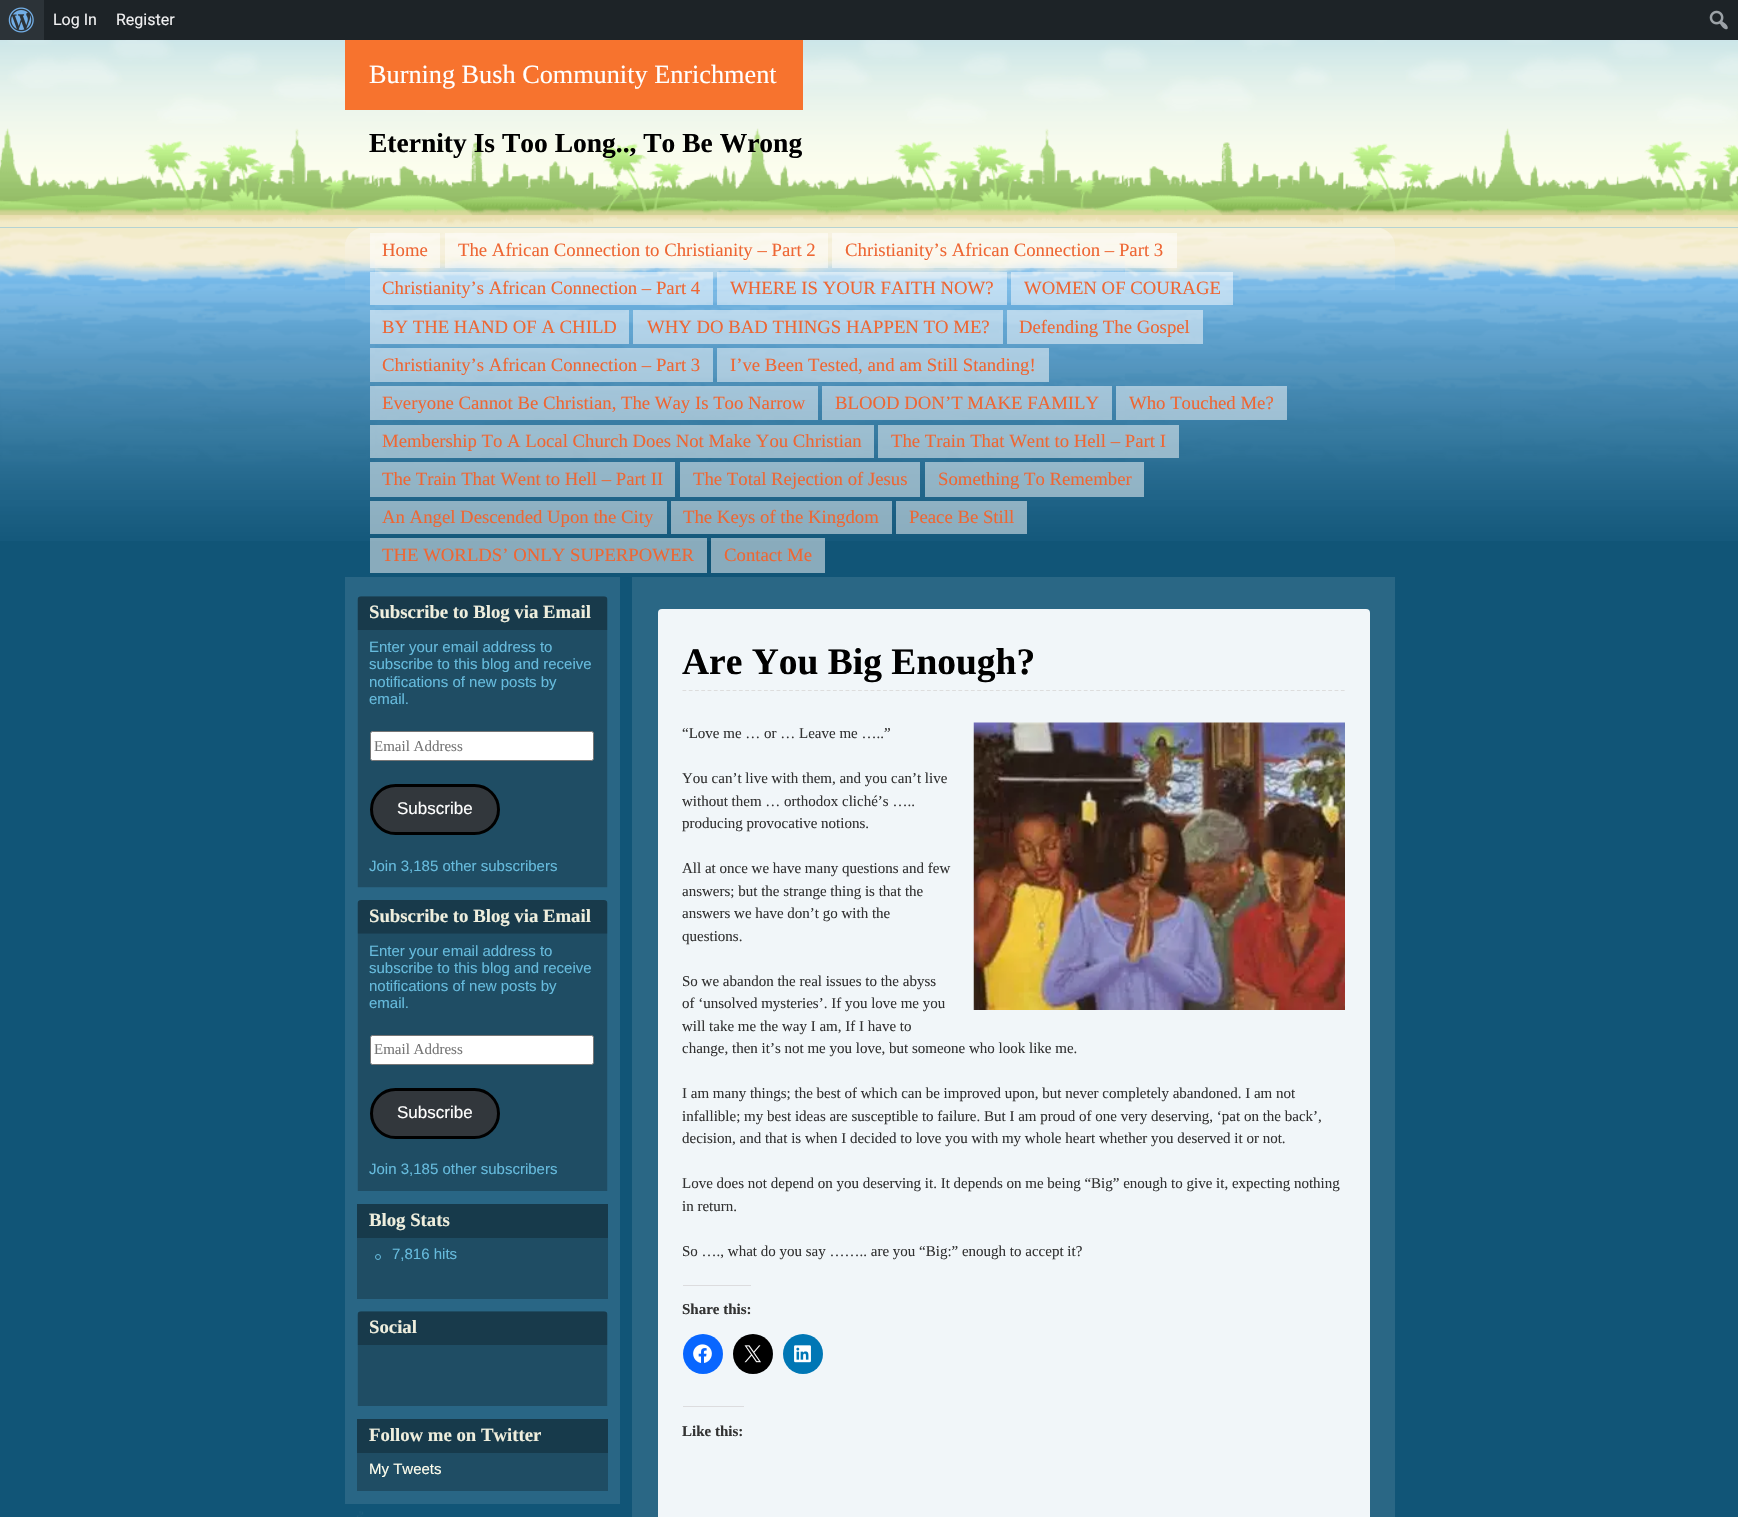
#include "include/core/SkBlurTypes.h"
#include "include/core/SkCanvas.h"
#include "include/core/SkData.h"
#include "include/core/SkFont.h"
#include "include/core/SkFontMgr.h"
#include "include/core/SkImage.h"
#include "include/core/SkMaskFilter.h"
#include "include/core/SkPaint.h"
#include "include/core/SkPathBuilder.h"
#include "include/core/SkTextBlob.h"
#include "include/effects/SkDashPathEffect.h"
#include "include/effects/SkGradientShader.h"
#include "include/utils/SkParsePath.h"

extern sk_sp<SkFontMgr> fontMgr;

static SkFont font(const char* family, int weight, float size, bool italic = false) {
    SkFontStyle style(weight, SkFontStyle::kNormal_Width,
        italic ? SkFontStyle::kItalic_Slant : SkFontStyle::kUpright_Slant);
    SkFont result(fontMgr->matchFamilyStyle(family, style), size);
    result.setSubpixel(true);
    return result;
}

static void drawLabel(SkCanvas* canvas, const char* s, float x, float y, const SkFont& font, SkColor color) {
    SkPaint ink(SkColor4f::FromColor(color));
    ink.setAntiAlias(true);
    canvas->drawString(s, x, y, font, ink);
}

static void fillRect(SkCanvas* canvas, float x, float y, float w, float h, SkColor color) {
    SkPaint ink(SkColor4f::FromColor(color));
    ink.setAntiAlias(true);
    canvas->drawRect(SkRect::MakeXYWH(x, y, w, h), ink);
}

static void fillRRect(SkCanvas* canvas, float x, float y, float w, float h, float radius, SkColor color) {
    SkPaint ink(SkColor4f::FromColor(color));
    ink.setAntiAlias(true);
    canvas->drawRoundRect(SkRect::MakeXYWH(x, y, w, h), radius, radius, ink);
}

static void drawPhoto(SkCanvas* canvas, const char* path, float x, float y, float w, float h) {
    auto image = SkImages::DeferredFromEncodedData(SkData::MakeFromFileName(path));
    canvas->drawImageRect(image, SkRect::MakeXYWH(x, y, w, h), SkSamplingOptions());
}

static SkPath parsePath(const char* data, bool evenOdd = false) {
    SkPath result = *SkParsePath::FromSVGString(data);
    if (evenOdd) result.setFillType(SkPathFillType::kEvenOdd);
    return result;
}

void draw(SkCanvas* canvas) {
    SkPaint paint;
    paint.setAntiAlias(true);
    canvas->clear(0xFF115577);
    fillRect(canvas, 44, 0, 1694, 40, 0xFF1D2327);
    fillRect(canvas, 0, 0, 44, 40, 0xFF2C3338);
    drawPhoto(canvas, "assets/img1.png", 8, 7, 26, 26);
    SkFont font1 = font("Roboto", 400, 16);
    drawLabel(canvas, "Log In", 53, 25, font1, 0xFFF0F0F1);
    drawLabel(canvas, "Register", 116, 25, font1, 0xFFF0F0F1);
    drawPhoto(canvas, "assets/img2.png", 1709, 10, 19, 20);
    fillRect(canvas, 0, 227, 1738, 1, 0xFF77BBDD);
    drawPhoto(canvas, "assets/img3.png", 0, 40, 1738, 188);
    fillRect(canvas, 345, 40, 458, 70, 0xFFF7732E);
    SkFont font2 = font("Liberation Serif", 400, 26.25f);
    drawLabel(canvas, "Burning Bush Community Enrichment", 369, 83, font2, 0xFFFFFFFF);
    SkFont font3 = font("Liberation Serif", 700, 27.5f);
    drawLabel(canvas, "Eternity Is Too Long.., To Be Wrong", 369, 152, font3, 0xFF000000);
    drawPhoto(canvas, "assets/img4.png", 0, 228, 1738, 313);
    drawPhoto(canvas, "assets/img5.png", 345, 228, 1050, 62);
    fillRect(canvas, 370, 233, 70, 35, 0x80FFFFFF);
    SkFont font4 = font("Liberation Serif", 400, 18.75f);
    drawLabel(canvas, "Home", 382, 256, font4, 0xFFEE6633);
    fillRect(canvas, 445, 233, 383, 35, 0x80FFFFFF);
    drawLabel(canvas, "The African Connection to Christianity – Part 2", 458, 256, font4, 0xFFEE6633);
    fillRect(canvas, 832, 233, 345, 35, 0x80FFFFFF);
    drawLabel(canvas, "Christianity’s African Connection – Part 3", 845, 256, font4, 0xFFEE6633);
    fillRect(canvas, 370, 272, 343, 33, 0x80FFFFFF);
    drawLabel(canvas, "Christianity’s African Connection – Part 4", 382, 294, font4, 0xFFEE6633);
    fillRect(canvas, 717, 272, 290, 33, 0x80FFFFFF);
    drawLabel(canvas, "WHERE IS YOUR FAITH NOW?", 730, 294, font4, 0xFFEE6633);
    fillRect(canvas, 1011, 272, 222, 33, 0x80FFFFFF);
    drawLabel(canvas, "WOMEN OF COURAGE", 1024, 294, font4, 0xFFEE6633);
    fillRect(canvas, 370, 310, 259, 34, 0x80FFFFFF);
    drawLabel(canvas, "BY THE HAND OF A CHILD", 382, 333, font4, 0xFFEE6633);
    fillRect(canvas, 633, 310, 370, 34, 0x80FFFFFF);
    drawLabel(canvas, "WHY DO BAD THINGS HAPPEN TO ME?", 647, 333, font4, 0xFFEE6633);
    fillRect(canvas, 1007, 310, 196, 34, 0x80FFFFFF);
    drawLabel(canvas, "Defending The Gospel", 1019, 333, font4, 0xFFEE6633);
    fillRect(canvas, 370, 348, 343, 34, 0x80FFFFFF);
    drawLabel(canvas, "Christianity’s African Connection – Part 3", 382, 371, font4, 0xFFEE6633);
    fillRect(canvas, 717, 348, 332, 34, 0x80FFFFFF);
    drawLabel(canvas, "I’ve Been Tested, and am Still Standing!", 730, 371, font4, 0xFFEE6633);
    fillRect(canvas, 370, 386, 448, 34, 0x80FFFFFF);
    drawLabel(canvas, "Everyone Cannot Be Christian, The Way Is Too Narrow", 382, 409, font4, 0xFFEE6633);
    fillRect(canvas, 822, 386, 290, 34, 0x80FFFFFF);
    drawLabel(canvas, "BLOOD DON’T MAKE FAMILY", 835, 409, font4, 0xFFEE6633);
    fillRect(canvas, 1116, 386, 171, 34, 0x80FFFFFF);
    drawLabel(canvas, "Who Touched Me?", 1129, 409, font4, 0xFFEE6633);
    fillRect(canvas, 370, 425, 504, 33, 0x80FFFFFF);
    drawLabel(canvas, "Membership To A Local Church Does Not Make You Christian", 382, 447, font4, 0xFFEE6633);
    fillRect(canvas, 878, 425, 301, 33, 0x80FFFFFF);
    drawLabel(canvas, "The Train That Went to Hell – Part I", 891, 447, font4, 0xFFEE6633);
    fillRect(canvas, 370, 462, 305, 35, 0x80FFFFFF);
    drawLabel(canvas, "The Train That Went to Hell – Part II", 382, 485, font4, 0xFFEE6633);
    fillRect(canvas, 680, 462, 240, 35, 0x80FFFFFF);
    drawLabel(canvas, "The Total Rejection of Jesus", 693, 485, font4, 0xFFEE6633);
    fillRect(canvas, 925, 462, 219, 35, 0x80FFFFFF);
    drawLabel(canvas, "Something To Remember", 938, 485, font4, 0xFFEE6633);
    fillRect(canvas, 370, 501, 297, 33, 0x80FFFFFF);
    drawLabel(canvas, "An Angel Descended Upon the City", 382, 523, font4, 0xFFEE6633);
    fillRect(canvas, 671, 501, 221, 33, 0x80FFFFFF);
    drawLabel(canvas, "The Keys of the Kingdom", 683, 523, font4, 0xFFEE6633);
    fillRect(canvas, 896, 501, 131, 33, 0x80FFFFFF);
    drawLabel(canvas, "Peace Be Still", 909, 523, font4, 0xFFEE6633);
    fillRect(canvas, 370, 538, 337, 35, 0x80FFFFFF);
    drawLabel(canvas, "THE WORLDS’ ONLY SUPERPOWER", 382, 561, font4, 0xFFEE6633);
    fillRect(canvas, 711, 538, 114, 35, 0x80FFFFFF);
    drawLabel(canvas, "Contact Me", 724, 561, font4, 0xFFEE6633);
    fillRect(canvas, 345, 577, 275, 927, 0xFF296685);
    drawPhoto(canvas, "assets/img6.png", 357, 596, 251, 292);
    drawPhoto(canvas, "assets/img7.png", 357, 596, 251, 34);
    SkFont font5 = font("Liberation Serif", 700, 18.75f);
    drawLabel(canvas, "Subscribe to Blog via Email", 369, 618, font5, 0xFFEEEEDD);
    SkFont font6 = font("Liberation Sans", 400, 15);
    drawLabel(canvas, "Enter your email address to", 369, 652, font6, 0xFF66BBDD);
    drawLabel(canvas, "subscribe to this blog and receive", 369, 669, font6, 0xFF66BBDD);
    drawLabel(canvas, "notifications of new posts by", 369, 687, font6, 0xFF66BBDD);
    drawLabel(canvas, "email.", 369, 704, font6, 0xFF66BBDD);
    paint.setColor(0xFFFFFFFF);
    canvas->drawRoundRect(SkRect::MakeXYWH(370.5f, 731.5f, 223, 29), 2, 2, paint);
    paint.setStroke(true);
    paint.setStrokeWidth(1);
    paint.setColor(0xFF767676);
    canvas->drawRoundRect(SkRect::MakeXYWH(370.5f, 731.5f, 223, 29), 2, 2, paint);
    SkFont font7 = font("Liberation Serif", 400, 15);
    drawLabel(canvas, "Email Address", 374, 751, font7, 0xFF757575);
    paint.setStroke(false);
    paint.setColor(0xFF32373C);
    canvas->drawRoundRect(SkRect::MakeXYWH(371.5f, 785.5f, 127, 48), 24, 24, paint);
    paint.setStroke(true);
    paint.setStrokeWidth(3);
    paint.setColor(0xFF000000);
    canvas->drawRoundRect(SkRect::MakeXYWH(371.5f, 785.5f, 127, 48), 24, 24, paint);
    SkFont font8 = font("Liberation Sans", 400, 17);
    drawLabel(canvas, "Subscribe", 397, 814, font8, 0xFFFFFFFF);
    drawLabel(canvas, "Join 3,185 other subscribers", 369, 871, font6, 0xFF66BBDD);
    drawPhoto(canvas, "assets/img8.png", 357, 900, 251, 291);
    drawPhoto(canvas, "assets/img9.png", 357, 900, 251, 34);
    drawLabel(canvas, "Subscribe to Blog via Email", 369, 922, font5, 0xFFEEEEDD);
    drawLabel(canvas, "Enter your email address to", 369, 956, font6, 0xFF66BBDD);
    drawLabel(canvas, "subscribe to this blog and receive", 369, 973, font6, 0xFF66BBDD);
    drawLabel(canvas, "notifications of new posts by", 369, 991, font6, 0xFF66BBDD);
    drawLabel(canvas, "email.", 369, 1008, font6, 0xFF66BBDD);
    paint.setStroke(false);
    paint.setColor(0xFFFFFFFF);
    canvas->drawRoundRect(SkRect::MakeXYWH(370.5f, 1035.5f, 223, 29), 2, 2, paint);
    paint.setStroke(true);
    paint.setStrokeWidth(1);
    paint.setColor(0xFF767676);
    canvas->drawRoundRect(SkRect::MakeXYWH(370.5f, 1035.5f, 223, 29), 2, 2, paint);
    drawLabel(canvas, "Email Address", 374, 1054, font7, 0xFF757575);
    paint.setStroke(false);
    paint.setColor(0xFF32373C);
    canvas->drawRoundRect(SkRect::MakeXYWH(371.5f, 1089.5f, 127, 48), 24, 24, paint);
    paint.setStroke(true);
    paint.setStrokeWidth(3);
    paint.setColor(0xFF000000);
    canvas->drawRoundRect(SkRect::MakeXYWH(371.5f, 1089.5f, 127, 48), 24, 24, paint);
    drawLabel(canvas, "Subscribe", 397, 1118, font8, 0xFFFFFFFF);
    drawLabel(canvas, "Join 3,185 other subscribers", 369, 1174, font6, 0xFF66BBDD);
    fillRect(canvas, 357, 1238, 251, 61, 0xFF1F4D64);
    fillRect(canvas, 357, 1204, 251, 34, 0xFF173A4B);
    drawLabel(canvas, "Blog Stats", 369, 1226, font5, 0xFFEEEEDD);
    paint.setStrokeWidth(1);
    paint.setColor(0xFF66BBDD);
    canvas->drawCircle(378, 1257, 2.5f, paint);
    drawLabel(canvas, "7,816 hits", 392, 1259, font6, 0xFF66BBDD);
    drawPhoto(canvas, "assets/img10.png", 357, 1311, 251, 95);
    drawPhoto(canvas, "assets/img7.png", 357, 1311, 251, 34);
    drawLabel(canvas, "Social", 369, 1333, font5, 0xFFEEEEDD);
    fillRect(canvas, 357, 1453, 251, 38, 0xFF1F4D64);
    fillRect(canvas, 357, 1419, 251, 34, 0xFF173A4B);
    drawLabel(canvas, "Follow me on Twitter", 369, 1441, font5, 0xFFEEEEDD);
    drawLabel(canvas, "My Tweets", 369, 1474, font6, 0xFFFFFFEE);
    drawPhoto(canvas, "assets/img15.png", 0, 1511, 1738, 6);
    fillRect(canvas, 632, 577, 763, 940, 0x1AFFFFFF);
    fillRRect(canvas, 658, 609, 712, 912, 4, 0xFFF1F6F9);
    paint.setStrokeWidth(1.2f);
    paint.setColor(0xFFDDDDDD);
    paint.setPathEffect(SkDashPathEffect::Make({{3.75f, 2.52f}}, 0));
    canvas->drawPath(parsePath("M682.5 690.5H1345"), paint);
    paint.setPathEffect(nullptr);
    SkFont font9 = font("Liberation Serif", 700, 37.5f);
    drawLabel(canvas, "Are You Big Enough?", 682, 674, font9, 0xFF000000);
    drawLabel(canvas, "“Love me … or … Leave me …..”", 682, 738, font7, 0xFF333333);
    drawPhoto(canvas, "assets/img11.png", 973, 722, 372, 288);
    drawLabel(canvas, "You can’t live with them, and you can’t live", 682, 783, font7, 0xFF333333);
    drawLabel(canvas, "without them … orthodox cliché’s …..", 682, 806, font7, 0xFF333333);
    drawLabel(canvas, "producing provocative notions.", 682, 828, font7, 0xFF333333);
    drawLabel(canvas, "All at once we have many questions and few", 682, 873, font7, 0xFF333333);
    drawLabel(canvas, "answers; but the strange thing is that the", 682, 896, font7, 0xFF333333);
    drawLabel(canvas, "answers we have don’t go with the", 682, 918, font7, 0xFF333333);
    drawLabel(canvas, "questions.", 682, 941, font7, 0xFF333333);
    drawLabel(canvas, "So we abandon the real issues to the abyss", 682, 986, font7, 0xFF333333);
    drawLabel(canvas, "of ‘unsolved mysteries’. If you love me you", 682, 1008, font7, 0xFF333333);
    drawLabel(canvas, "will take me the way I am, If I have to", 682, 1031, font7, 0xFF333333);
    drawLabel(canvas, "change, then it’s not me you love, but someone who look like me.", 682, 1053, font7, 0xFF333333);
    drawLabel(canvas, "I am many things; the best of which can be improved upon, but never completely abandoned. I am not", 682, 1098, font7, 0xFF333333);
    drawLabel(canvas, "infallible; my best ideas are susceptible to failure. But I am proud of one very deserving, ‘pat on the back’,", 682, 1121, font7, 0xFF333333);
    drawLabel(canvas, "decision, and that is when I decided to love you with my whole heart whether you deserved it or not.", 682, 1143, font7, 0xFF333333);
    drawLabel(canvas, "Love does not depend on you deserving it. It depends on me being “Big” enough to give it, expecting nothing", 682, 1188, font7, 0xFF333333);
    drawLabel(canvas, "in return.", 682, 1211, font7, 0xFF333333);
    drawLabel(canvas, "So …., what do you say …….. are you “Big:” enough to accept it?", 682, 1256, font7, 0xFF333333);
    fillRect(canvas, 683, 1285, 68, 1, 0xFFDCDCDE);
    SkFont font10 = font("Liberation Serif", 700, 15);
    drawLabel(canvas, "Share this:", 682, 1314, font10, 0xFF333333);
    paint.setStroke(false);
    paint.setColor(0xFF0866FF);
    canvas->drawCircle(703, 1354, 20, paint);
    drawPhoto(canvas, "assets/img12.png", 693, 1344, 19, 19);
    paint.setColor(0xFF000000);
    canvas->drawCircle(753, 1354, 20, paint);
    drawPhoto(canvas, "assets/img13.png", 744, 1345, 17, 18);
    paint.setColor(0xFF0077B5);
    canvas->drawCircle(803, 1354, 20, paint);
    drawPhoto(canvas, "assets/img14.png", 794, 1345, 17, 18);
    fillRect(canvas, 683, 1406, 61, 1, 0xFFDCDCDE);
    drawLabel(canvas, "Like this:", 682, 1436, font10, 0xFF333333);
}
